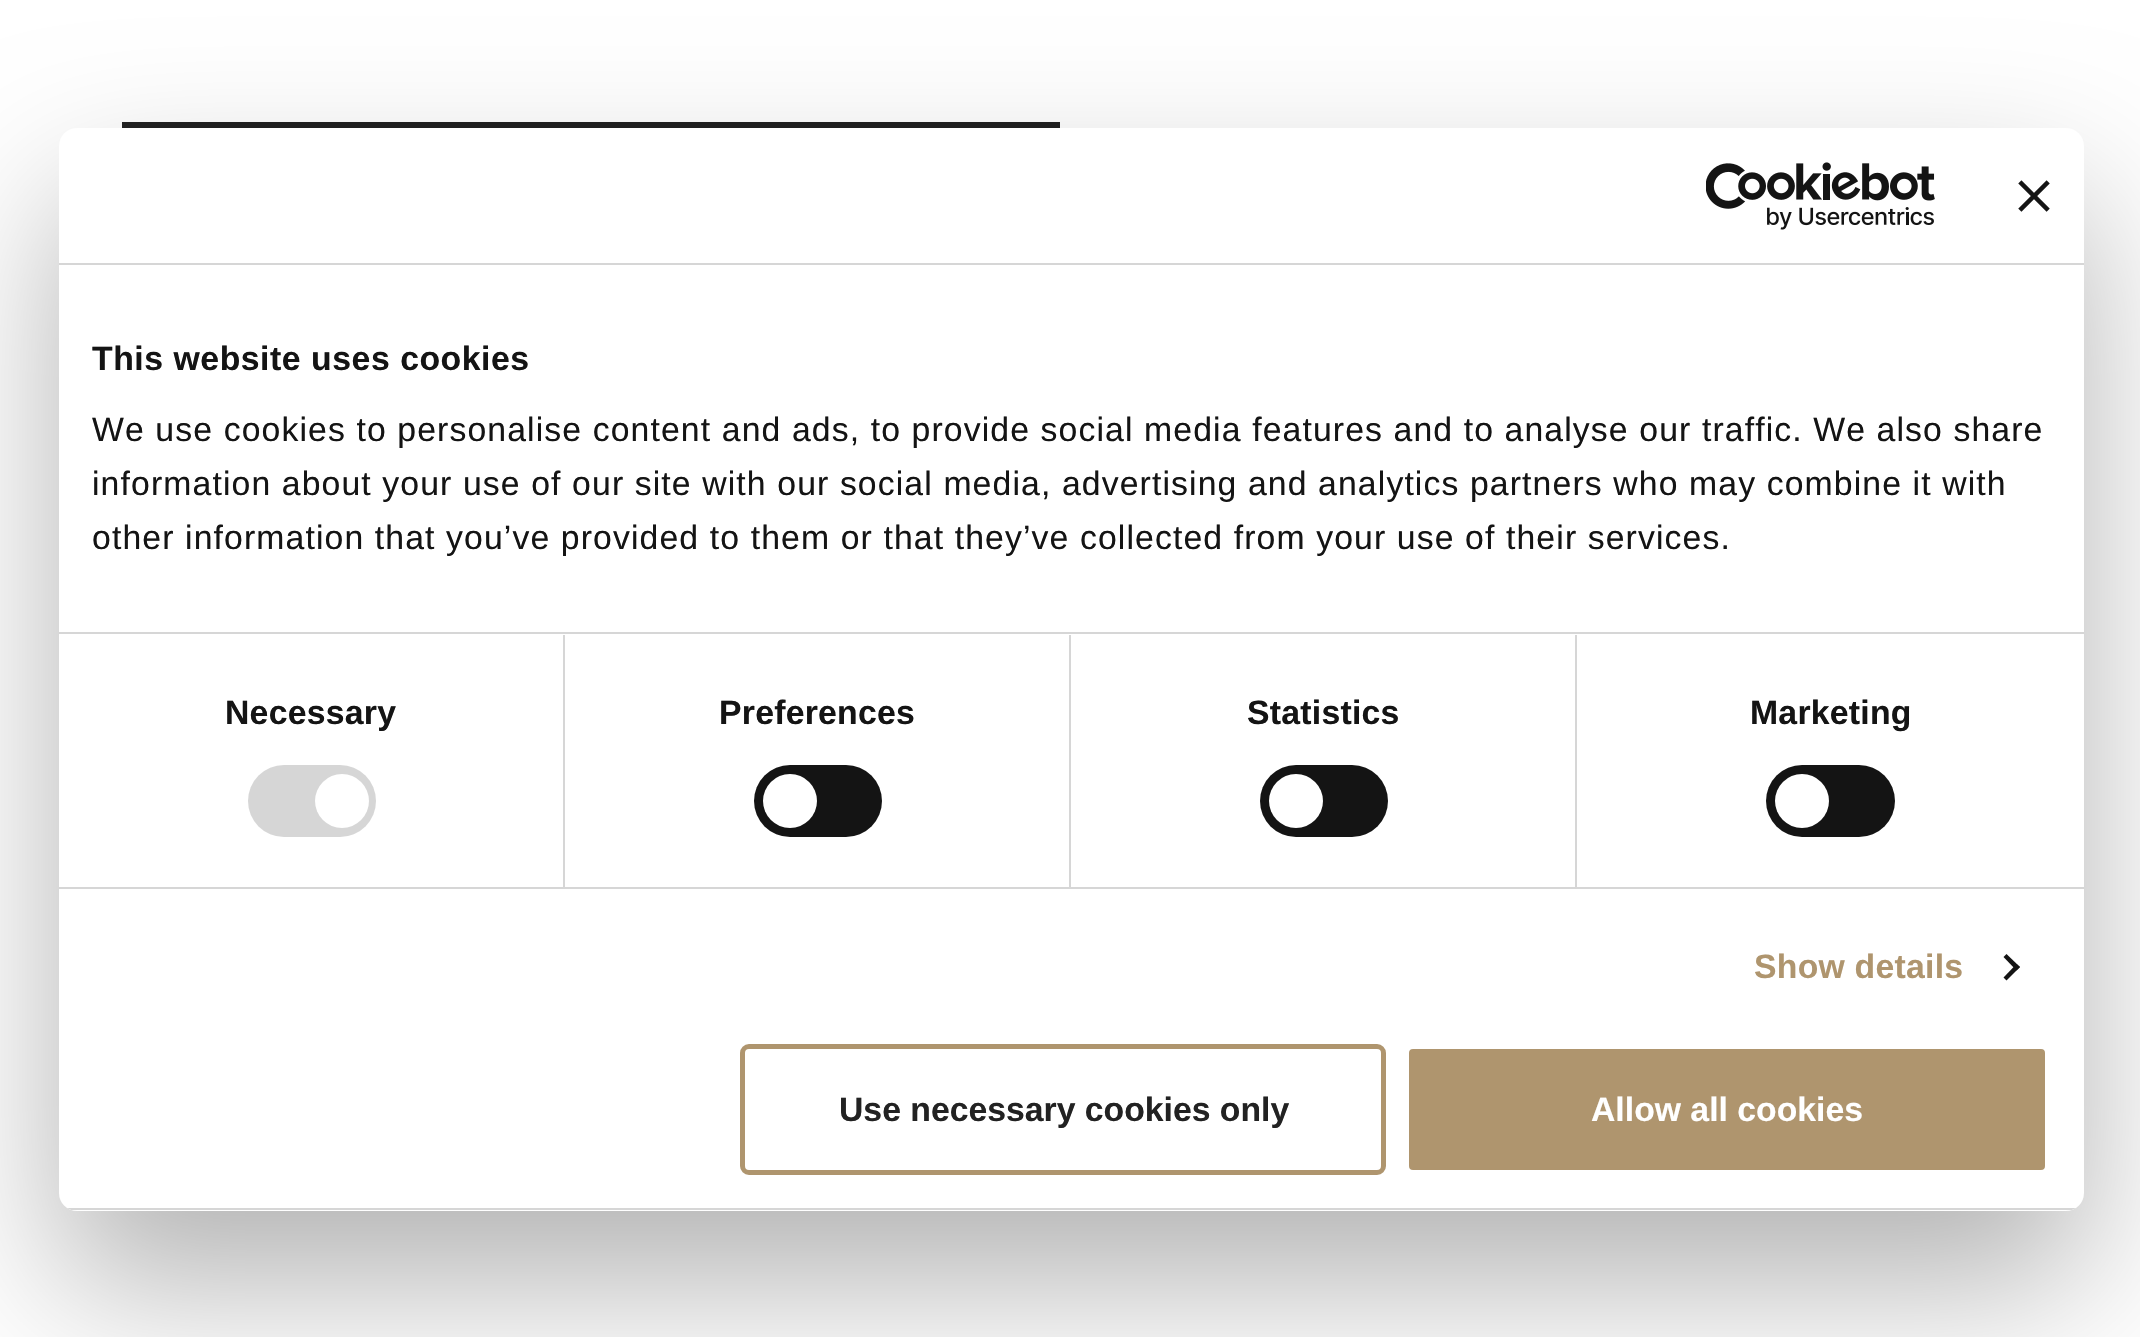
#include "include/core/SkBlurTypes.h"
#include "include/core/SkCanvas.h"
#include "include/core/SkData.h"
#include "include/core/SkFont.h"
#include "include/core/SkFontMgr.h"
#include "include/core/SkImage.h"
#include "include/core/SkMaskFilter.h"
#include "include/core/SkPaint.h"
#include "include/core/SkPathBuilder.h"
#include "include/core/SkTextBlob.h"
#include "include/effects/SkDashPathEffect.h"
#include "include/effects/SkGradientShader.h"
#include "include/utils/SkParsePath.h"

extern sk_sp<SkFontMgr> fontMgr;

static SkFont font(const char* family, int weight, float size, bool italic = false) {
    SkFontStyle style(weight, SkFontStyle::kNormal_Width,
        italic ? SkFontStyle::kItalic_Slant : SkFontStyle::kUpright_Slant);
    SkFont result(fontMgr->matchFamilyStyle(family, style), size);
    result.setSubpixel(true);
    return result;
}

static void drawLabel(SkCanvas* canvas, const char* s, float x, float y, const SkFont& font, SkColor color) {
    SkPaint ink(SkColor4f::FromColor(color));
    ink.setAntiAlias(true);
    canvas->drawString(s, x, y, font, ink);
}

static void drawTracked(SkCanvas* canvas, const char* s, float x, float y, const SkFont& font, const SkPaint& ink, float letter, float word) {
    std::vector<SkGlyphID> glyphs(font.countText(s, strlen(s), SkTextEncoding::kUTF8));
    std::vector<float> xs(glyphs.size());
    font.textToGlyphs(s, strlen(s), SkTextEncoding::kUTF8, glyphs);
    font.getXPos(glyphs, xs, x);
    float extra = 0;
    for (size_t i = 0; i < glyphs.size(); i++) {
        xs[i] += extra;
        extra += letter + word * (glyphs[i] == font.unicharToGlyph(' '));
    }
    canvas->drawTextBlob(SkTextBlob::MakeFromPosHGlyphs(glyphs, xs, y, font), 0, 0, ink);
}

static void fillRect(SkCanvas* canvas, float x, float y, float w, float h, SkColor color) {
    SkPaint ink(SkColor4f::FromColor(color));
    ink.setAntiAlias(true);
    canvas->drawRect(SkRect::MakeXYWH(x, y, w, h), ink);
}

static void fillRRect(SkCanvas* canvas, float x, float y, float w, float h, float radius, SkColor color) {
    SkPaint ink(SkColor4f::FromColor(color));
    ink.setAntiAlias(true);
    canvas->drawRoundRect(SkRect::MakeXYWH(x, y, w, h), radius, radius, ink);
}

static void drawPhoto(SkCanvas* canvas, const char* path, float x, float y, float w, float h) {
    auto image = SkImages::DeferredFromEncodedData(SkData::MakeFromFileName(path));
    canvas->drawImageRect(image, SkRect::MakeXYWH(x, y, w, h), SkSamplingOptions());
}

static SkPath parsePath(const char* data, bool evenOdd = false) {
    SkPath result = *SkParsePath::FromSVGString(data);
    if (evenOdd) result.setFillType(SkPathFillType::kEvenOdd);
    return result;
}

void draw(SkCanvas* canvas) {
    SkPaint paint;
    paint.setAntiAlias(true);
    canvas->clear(0xFFFFFFFF);
    fillRect(canvas, 122, 122, 938, 6, 0xFF222222);
    paint.setColor(0x4D000000);
    paint.setMaskFilter(SkMaskFilter::MakeBlur(kNormal_SkBlurStyle, 76.5f));
    canvas->drawRoundRect(SkRect::MakeXYWH(59, 200, 2025, 1083), 18, 18, paint);
    paint.setMaskFilter(nullptr);
    fillRRect(canvas, 59, 128, 2025, 1083, 18, 0xFFFFFFFF);
    fillRect(canvas, 59, 263, 2025, 2, 0xFFD6D6D6);
    drawPhoto(canvas, "assets/img1.png", 1706, 162, 229, 68);
    drawPhoto(canvas, "assets/img2.png", 2018, 180, 32, 32);
    fillRect(canvas, 59, 632, 2025, 2, 0xFFD6D6D6);
    SkFont font1 = font("Liberation Sans", 700, 33.75f);
    paint.setColor(0xFF141414);
    drawTracked(canvas, "This website uses cookies", 92, 370, font1, paint, 0.55f, 0);
    SkFont font2 = font("Liberation Sans", 400, 33.75f);
    drawTracked(canvas, "We use cookies to personalise content and ads, to provide social media features and to analyse our traffic. We also share", 92, 441, font2, paint, 1.12f, 0);
    drawTracked(canvas, "information about your use of our site with our social media, advertising and analytics partners who may combine it with", 92, 495, font2, paint, 1.12f, 0);
    drawTracked(canvas, "other information that you’ve provided to them or that they’ve collected from your use of their services.", 92, 549, font2, paint, 1.12f, 0);
    fillRect(canvas, 59, 887, 2025, 2, 0xFFD6D6D6);
    fillRect(canvas, 563, 635, 2, 252, 0xFFD6D6D6);
    drawTracked(canvas, "Necessary", 225, 724, font1, paint, 0.25f, 0);
    fillRRect(canvas, 248, 765, 128, 72, 36, 0xFFD6D6D6);
    paint.setColor(0xFFFFFFFF);
    canvas->drawCircle(342, 801, 27, paint);
    fillRect(canvas, 1069, 635, 2, 252, 0xFFD6D6D6);
    paint.setColor(0xFF141414);
    drawTracked(canvas, "Preferences", 719, 724, font1, paint, 0.25f, 0);
    fillRRect(canvas, 754, 765, 128, 72, 36, 0xFF141414);
    paint.setColor(0xFFFFFFFF);
    canvas->drawCircle(790, 801, 27, paint);
    fillRect(canvas, 1575, 635, 2, 252, 0xFFD6D6D6);
    paint.setColor(0xFF141414);
    drawTracked(canvas, "Statistics", 1247, 724, font1, paint, 0.25f, 0);
    fillRRect(canvas, 1260, 765, 128, 72, 36, 0xFF141414);
    paint.setColor(0xFFFFFFFF);
    canvas->drawCircle(1296, 801, 27, paint);
    paint.setColor(0xFF141414);
    drawTracked(canvas, "Marketing", 1750, 724, font1, paint, 0.25f, 0);
    fillRRect(canvas, 1766, 765, 129, 72, 36, 0xFF141414);
    paint.setColor(0xFFFFFFFF);
    canvas->drawCircle(1802, 801, 27, paint);
    paint.setColor(0xFFAF956E);
    drawTracked(canvas, "Show details", 1754, 978, font1, paint, 0.25f, 0);
    paint.setColor(0xFF141414);
    canvas->drawPath(parsePath("M2006.5 954L2020 967L2016.5 970.5L2003.5 957Z"), paint);
    canvas->drawPath(parsePath("M2016.5 964L2020 967L2006.5 980.5L2003.5 977.5Z"), paint);
    canvas->save();
    canvas->clipPath(parsePath("M77 128H2066C2076 128 2084 136 2084 146V1193C2084 1203 2076 1211 2066 1211H77C67 1211 59 1203 59 1193V146C59 136 67 128 77 128Z"), true);
    fillRect(canvas, 59, 1208, 2025, 2, 0xFFD6D6D6);
    canvas->restore();
    paint.setStroke(true);
    paint.setStrokeWidth(5);
    paint.setColor(0xFFAF956E);
    canvas->drawRoundRect(SkRect::MakeXYWH(742.5f, 1046.5f, 641, 126), 6.5f, 6.5f, paint);
    drawLabel(canvas, "Use necessary cookies only", 839, 1121, font1, 0xFF222222);
    paint.setStroke(false);
    canvas->drawRoundRect(SkRect::MakeXYWH(1406.5f, 1046.5f, 641, 126), 6.5f, 6.5f, paint);
    paint.setStroke(true);
    paint.setColor(0xFFFFFFFF);
    canvas->drawRoundRect(SkRect::MakeXYWH(1406.5f, 1046.5f, 641, 126), 6.5f, 6.5f, paint);
    drawLabel(canvas, "Allow all cookies", 1591, 1121, font1, 0xFFFFFFFF);
}
